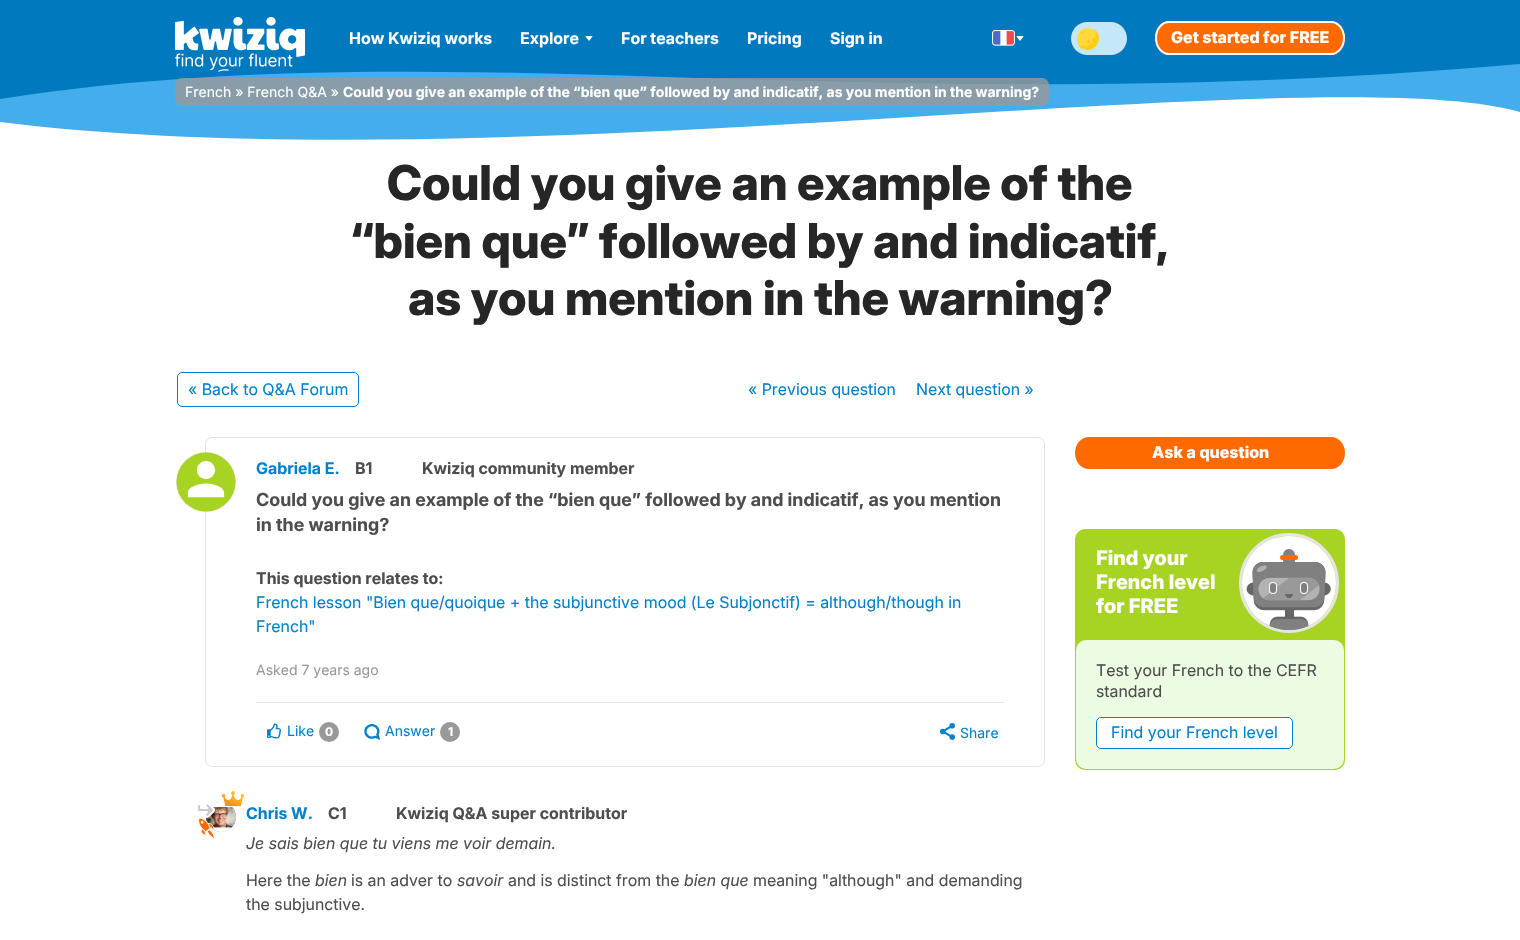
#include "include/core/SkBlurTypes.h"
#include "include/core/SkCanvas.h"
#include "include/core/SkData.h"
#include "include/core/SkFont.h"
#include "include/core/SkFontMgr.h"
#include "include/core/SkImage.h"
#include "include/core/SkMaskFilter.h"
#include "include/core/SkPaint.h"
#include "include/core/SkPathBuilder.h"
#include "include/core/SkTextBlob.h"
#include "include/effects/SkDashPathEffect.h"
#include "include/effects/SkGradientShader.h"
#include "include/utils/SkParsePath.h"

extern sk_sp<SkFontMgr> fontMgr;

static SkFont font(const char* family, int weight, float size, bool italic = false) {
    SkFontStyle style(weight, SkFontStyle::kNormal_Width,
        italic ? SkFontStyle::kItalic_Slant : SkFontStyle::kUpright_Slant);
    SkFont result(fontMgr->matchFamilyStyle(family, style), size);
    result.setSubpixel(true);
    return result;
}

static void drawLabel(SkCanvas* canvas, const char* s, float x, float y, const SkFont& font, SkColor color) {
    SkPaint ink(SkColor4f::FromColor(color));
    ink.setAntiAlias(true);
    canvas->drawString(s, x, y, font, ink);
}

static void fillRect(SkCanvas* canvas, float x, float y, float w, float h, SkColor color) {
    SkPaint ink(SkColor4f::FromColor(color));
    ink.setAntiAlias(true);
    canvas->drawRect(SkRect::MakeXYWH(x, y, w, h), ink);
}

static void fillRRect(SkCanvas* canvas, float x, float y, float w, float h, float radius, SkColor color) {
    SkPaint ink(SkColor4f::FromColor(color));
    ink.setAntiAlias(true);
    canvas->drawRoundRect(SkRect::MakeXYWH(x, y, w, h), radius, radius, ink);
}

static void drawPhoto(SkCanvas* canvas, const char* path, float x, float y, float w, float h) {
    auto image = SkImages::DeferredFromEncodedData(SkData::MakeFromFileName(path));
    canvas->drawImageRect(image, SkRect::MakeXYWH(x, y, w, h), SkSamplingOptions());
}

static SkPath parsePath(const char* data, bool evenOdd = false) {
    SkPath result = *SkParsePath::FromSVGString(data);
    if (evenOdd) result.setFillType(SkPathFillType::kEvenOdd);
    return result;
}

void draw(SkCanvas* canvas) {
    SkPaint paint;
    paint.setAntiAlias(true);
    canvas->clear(0xFFFFFFFF);
    paint.setColor(0xFF0079BF);
    canvas->drawPath(parsePath("M1520 0H0V100C226 65 447 71 697 79C936 86 1201 93 1520 65Z"), paint);
    paint.setColor(0xFF44ADEB);
    canvas->drawPath(parsePath("M697 78C447 70 226 64 0 99V122C272 156 635 134 943 115C1206 99 1429 86 1520 112V64C1201 92 936 85 697 78Z"), paint);
    drawPhoto(canvas, "assets/img1.png", 175, 17, 130, 40);
    drawPhoto(canvas, "assets/img2.png", 175, 53, 118, 19);
    SkFont font1 = font("Inter", 700, 16);
    drawLabel(canvas, "How Kwiziq works", 349, 44, font1, 0xFFFFFFFF);
    drawLabel(canvas, "Explore", 520, 44, font1, 0xFFFFFFFF);
    drawPhoto(canvas, "assets/img3.png", 585, 36, 8, 5);
    drawLabel(canvas, "For teachers", 621, 44, font1, 0xFFFFFFFF);
    drawLabel(canvas, "Pricing", 747, 44, font1, 0xFFFFFFFF);
    drawLabel(canvas, "Sign in", 830, 44, font1, 0xFFFFFFFF);
    drawPhoto(canvas, "assets/img4.png", 992, 30, 23, 16);
    drawPhoto(canvas, "assets/img5.png", 1016, 36, 8, 5);
    fillRRect(canvas, 1071, 22, 56, 33, 16.5f, 0xFFC4E8FA);
    paint.setColor(0xFFFFD93A);
    canvas->drawCircle(1087.5f, 38.5f, 10.5f, paint);
    paint.setColor(0xFFFFD00B);
    canvas->drawPath(parsePath("M1077.5 44.5C1079 47 1081.5 49 1084.5 49.5C1097 53 1104.5 36 1094 29C1099.5 40 1088 50 1077.5 44.5Z"), paint);
    paint.setColor(0xFFFFC135);
    canvas->drawPath(parsePath("M1083 31.5C1084 32.5 1082 34.5 1081 33.5C1080 32.5 1081.5 30.5 1083 31.5Z"), paint);
    canvas->drawCircle(1088.5f, 41.5f, 1.5f, paint);
    canvas->drawPath(parsePath("M1093 38C1094.5 37.5 1095.5 40.5 1094 41C1092.5 41.5 1091.5 38.5 1093 38Z"), paint);
    paint.setColor(0xFFFF6A00);
    canvas->drawPath(parsePath("M1169 21H1331C1339 21 1345 29 1345 38C1345 47 1339 55 1331 55H1169C1161 55 1155 47 1155 38C1155 29 1161 21 1169 21Z"), paint);
    paint.setStroke(true);
    paint.setStrokeWidth(2);
    paint.setColor(0xFFFFFFFF);
    canvas->drawPath(parsePath("M1169 22H1331C1338 22 1344 29 1344 38C1344 47 1338 54 1331 54H1169C1162 54 1156 47 1156 38C1156 29 1162 22 1169 22Z"), paint);
    SkFont font2 = font("Inter", 800, 16);
    drawLabel(canvas, "Get started for FREE", 1171, 43, font2, 0xFFFFFFFF);
    fillRRect(canvas, 175, 78, 874, 28, 7, 0xCC999999);
    SkFont font3 = font("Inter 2", 400, 14);
    drawLabel(canvas, "French » French Q&A »", 185, 97, font3, 0xFFFFFFFF);
    SkFont font4 = font("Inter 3", 700, 14);
    drawLabel(canvas, "Could you give an example of the “bien que” followed by and indicatif, as you mention in the warning?", 343, 97, font4, 0xFFFFFFFF);
    SkFont font5 = font("Inter 3", 800, 48);
    drawLabel(canvas, "Could you give an example of the", 387, 200, font5, 0xFF262626);
    drawLabel(canvas, "“bien que” followed by and indicatif,", 351, 258, font5, 0xFF262626);
    drawLabel(canvas, "as you mention in the warning?", 408, 315, font5, 0xFF262626);
    paint.setStrokeWidth(1);
    paint.setColor(0xFF0081CC);
    canvas->drawRoundRect(SkRect::MakeXYWH(177.5f, 372.5f, 181, 34), 4.5f, 4.5f, paint);
    SkFont font6 = font("Inter", 400, 16);
    drawLabel(canvas, "« Back to Q&A Forum", 188, 395, font6, 0xFF0081CC);
    drawLabel(canvas, "« Previous question", 748, 395, font6, 0xFF0081CC);
    drawLabel(canvas, "Next question »", 916, 395, font6, 0xFF0081CC);
    paint.setColor(0xFFE5E5E5);
    canvas->drawRoundRect(SkRect::MakeXYWH(205.5f, 437.5f, 839, 329), 6.5f, 6.5f, paint);
    paint.setStroke(false);
    canvas->drawCircle(206, 482, 30, paint);
    drawPhoto(canvas, "assets/img6.png", 176, 452, 60, 60);
    drawLabel(canvas, "Gabriela E.", 256, 474, font1, 0xFF0081CC);
    drawLabel(canvas, "B1", 355, 474, font1, 0xFF4D4D4D);
    drawLabel(canvas, "Kwiziq community member", 422, 474, font1, 0xFF4D4D4D);
    SkFont font7 = font("Inter 2", 700, 18);
    drawLabel(canvas, "Could you give an example of the “bien que” followed by and indicatif, as you mention", 256, 506, font7, 0xFF4D4D4D);
    drawLabel(canvas, "in the warning?", 256, 531, font7, 0xFF4D4D4D);
    drawLabel(canvas, "This question relates to:", 256, 584, font1, 0xFF4D4D4D);
    drawLabel(canvas, "French lesson \"Bien que/quoique + the subjunctive mood (Le Subjonctif) = although/though in", 256, 608, font6, 0xFF0081CC);
    drawLabel(canvas, "French\"", 256, 632, font6, 0xFF0081CC);
    drawLabel(canvas, "Asked 7 years ago", 256, 675, font3, 0xFF999999);
    fillRect(canvas, 256, 702, 748, 1, 0xFFE5E5E5);
    drawPhoto(canvas, "assets/img7.png", 267, 723, 14, 16);
    drawLabel(canvas, "Like", 287, 736, font3, 0xFF0081CC);
    paint.setColor(0xFF999999);
    canvas->drawCircle(329, 732, 10, paint);
    SkFont font8 = font("Inter 3", 700, 12);
    drawLabel(canvas, "0", 325, 736, font8, 0xFFFFFFFF);
    drawPhoto(canvas, "assets/img8.png", 364, 724, 16, 16);
    drawLabel(canvas, "Answer", 385, 736, font3, 0xFF0081CC);
    canvas->drawCircle(450, 732, 10, paint);
    drawLabel(canvas, "1", 448, 736, font8, 0xFFFFFFFF);
    drawPhoto(canvas, "assets/img9.png", 940, 723, 15, 17);
    drawLabel(canvas, "Share", 960, 738, font3, 0xFF0081CC);
    paint.setColor(0xFFA5A5A5);
    canvas->drawCircle(221, 817, 15, paint);
    drawPhoto(canvas, "assets/img11.png", 206, 802, 30, 30);
    drawPhoto(canvas, "assets/img10.png", 221, 790, 24, 17);
    drawPhoto(canvas, "assets/img12.png", 198, 804, 17, 14);
    drawPhoto(canvas, "assets/img13.png", 198, 818, 17, 21);
    drawLabel(canvas, "Chris W.", 246, 819, font1, 0xFF0081CC);
    drawLabel(canvas, "C1", 328, 819, font1, 0xFF4D4D4D);
    drawLabel(canvas, "Kwiziq Q&A super contributor", 396, 819, font1, 0xFF4D4D4D);
    SkFont font9 = font("Inter", 400, 16, true);
    drawLabel(canvas, "Je sais bien que tu viens me voir demain.", 246, 849, font9, 0xFF4D4D4D);
    drawLabel(canvas, "Here the", 246, 886, font6, 0xFF4D4D4D);
    drawLabel(canvas, "bien", 315, 886, font9, 0xFF4D4D4D);
    drawLabel(canvas, "is an adver to", 351, 886, font6, 0xFF4D4D4D);
    drawLabel(canvas, "savoir", 457, 886, font9, 0xFF4D4D4D);
    drawLabel(canvas, "and is distinct from the", 508, 886, font6, 0xFF4D4D4D);
    drawLabel(canvas, "bien que", 684, 886, font9, 0xFF4D4D4D);
    drawLabel(canvas, "meaning \"although\" and demanding", 753, 886, font6, 0xFF4D4D4D);
    drawLabel(canvas, "the subjunctive.", 246, 910, font6, 0xFF4D4D4D);
    paint.setColor(0xFFFF6A00);
    canvas->drawPath(parsePath("M1089 437H1331C1339 437 1345 444 1345 453C1345 462 1339 469 1331 469H1089C1081 469 1075 462 1075 453C1075 444 1081 437 1089 437Z"), paint);
    drawLabel(canvas, "Ask a question", 1152, 458, font2, 0xFFFFFFFF);
    fillRRect(canvas, 1075, 529, 270, 241, 10, 0xFFA7D422);
    paint.setStroke(true);
    paint.setStrokeWidth(3);
    paint.setColor(0xFFE5E5E5);
    canvas->drawCircle(1289, 583, 48.5f, paint);
    paint.setStroke(false);
    paint.setColor(0xFFFFFFFF);
    canvas->drawCircle(1289, 583, 47, paint);
    drawPhoto(canvas, "assets/img14.png", 1246, 549, 85, 81);
    fillRRect(canvas, 1280, 555, 18, 5, 2.5f, 0xFFFF6A00);
    fillRRect(canvas, 1269, 582, 8, 12, 4, 0xFFFFFFFF);
    fillRRect(canvas, 1270, 583, 6, 10, 3, 0xFF808080);
    fillRRect(canvas, 1300, 582, 8, 12, 4, 0xFFFFFFFF);
    fillRRect(canvas, 1301, 583, 6, 10, 3, 0xFF808080);
    paint.setColor(0xFF666666);
    canvas->drawPath(parsePath("M1285 594H1293C1293 596 1291 598 1289 598C1287 598 1285 596 1285 594Z"), paint);
    SkFont font10 = font("Inter 2", 800, 20);
    drawLabel(canvas, "Find your", 1096, 565, font10, 0xFFFFFFFF);
    drawLabel(canvas, "French level", 1096, 589, font10, 0xFFFFFFFF);
    drawLabel(canvas, "for FREE", 1096, 613, font10, 0xFFFFFFFF);
    fillRRect(canvas, 1076, 640, 268, 129, 10, 0xFFECFCE3);
    drawLabel(canvas, "Test your French to the CEFR", 1096, 676, font6, 0xFF4D4D4D);
    drawLabel(canvas, "standard", 1096, 697, font6, 0xFF4D4D4D);
    paint.setColor(0xFFFFFFFF);
    canvas->drawRoundRect(SkRect::MakeXYWH(1096.5f, 717.5f, 196, 31), 4.5f, 4.5f, paint);
    paint.setStroke(true);
    paint.setStrokeWidth(1);
    paint.setColor(0xFF0081CC);
    canvas->drawRoundRect(SkRect::MakeXYWH(1096.5f, 717.5f, 196, 31), 4.5f, 4.5f, paint);
    drawLabel(canvas, "Find your French level", 1111, 738, font6, 0xFF0081CC);
}
